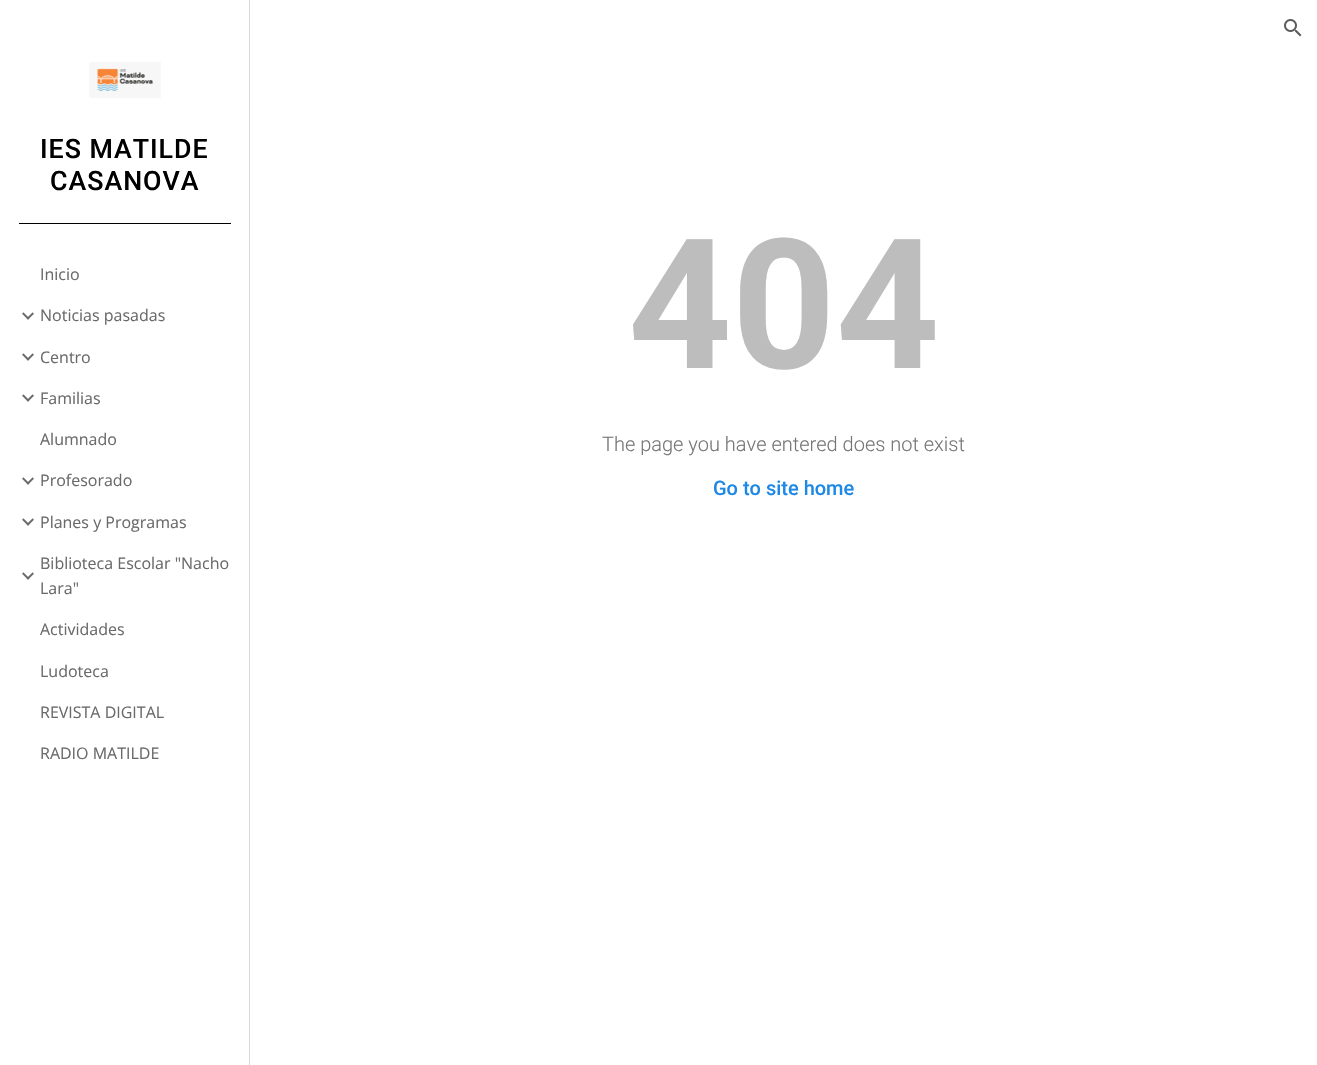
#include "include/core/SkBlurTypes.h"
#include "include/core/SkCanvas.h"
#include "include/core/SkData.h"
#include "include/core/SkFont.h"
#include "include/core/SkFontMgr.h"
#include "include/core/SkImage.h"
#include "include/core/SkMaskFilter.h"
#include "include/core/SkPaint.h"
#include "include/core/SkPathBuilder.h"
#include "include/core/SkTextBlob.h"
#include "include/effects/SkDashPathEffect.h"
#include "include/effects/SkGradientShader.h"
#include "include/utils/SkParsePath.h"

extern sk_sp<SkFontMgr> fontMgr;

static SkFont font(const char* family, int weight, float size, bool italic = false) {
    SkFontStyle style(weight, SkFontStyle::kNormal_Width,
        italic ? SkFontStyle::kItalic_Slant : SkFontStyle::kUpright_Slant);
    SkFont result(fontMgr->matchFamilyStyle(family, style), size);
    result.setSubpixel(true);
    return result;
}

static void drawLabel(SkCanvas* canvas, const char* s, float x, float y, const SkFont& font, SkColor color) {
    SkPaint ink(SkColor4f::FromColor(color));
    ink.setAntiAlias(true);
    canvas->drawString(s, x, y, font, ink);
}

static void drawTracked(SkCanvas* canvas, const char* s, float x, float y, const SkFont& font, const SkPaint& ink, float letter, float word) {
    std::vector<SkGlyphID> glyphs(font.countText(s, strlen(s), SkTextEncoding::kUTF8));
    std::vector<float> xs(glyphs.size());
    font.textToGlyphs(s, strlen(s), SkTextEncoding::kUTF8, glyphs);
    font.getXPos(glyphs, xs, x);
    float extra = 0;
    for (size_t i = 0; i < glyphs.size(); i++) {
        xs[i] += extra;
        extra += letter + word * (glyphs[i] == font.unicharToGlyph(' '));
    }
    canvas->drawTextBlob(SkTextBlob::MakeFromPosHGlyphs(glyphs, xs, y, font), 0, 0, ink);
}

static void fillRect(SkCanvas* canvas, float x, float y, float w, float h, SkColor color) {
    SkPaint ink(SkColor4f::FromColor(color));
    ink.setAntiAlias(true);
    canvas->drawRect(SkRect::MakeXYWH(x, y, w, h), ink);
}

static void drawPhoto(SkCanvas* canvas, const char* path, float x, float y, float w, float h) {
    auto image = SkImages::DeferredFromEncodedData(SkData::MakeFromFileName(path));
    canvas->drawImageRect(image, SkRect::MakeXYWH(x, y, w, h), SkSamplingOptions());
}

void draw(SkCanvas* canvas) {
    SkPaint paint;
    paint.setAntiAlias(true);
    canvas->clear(0xFFFFFFFF);
    drawPhoto(canvas, "assets/img1.png", 1284, 19, 18, 18);
    fillRect(canvas, 249, 0, 1, 1065, 0xFFD9D9D9);
    drawPhoto(canvas, "assets/img2.png", 89, 62, 72, 36);
    SkFont font1 = font("Roboto", 500, 26.75f);
    paint.setColor(0xFF000000);
    drawTracked(canvas, "IES MATILDE", 40, 158, font1, paint, 1, 0);
    drawTracked(canvas, "CASANOVA", 50, 190, font1, paint, 1, 0);
    fillRect(canvas, 19, 223, 212, 1, 0xFF000000);
    SkFont font2 = font("Open Sans", 400, 16);
    drawLabel(canvas, "Inicio", 40, 280, font2, 0xFF6A6A6A);
    drawPhoto(canvas, "assets/img3.png", 22, 312, 12, 8);
    drawLabel(canvas, "Noticias pasadas", 40, 321, font2, 0xFF6A6A6A);
    drawPhoto(canvas, "assets/img3.png", 22, 353, 12, 8);
    drawLabel(canvas, "Centro", 40, 363, font2, 0xFF6A6A6A);
    drawPhoto(canvas, "assets/img3.png", 22, 394, 12, 8);
    drawLabel(canvas, "Familias", 40, 404, font2, 0xFF6A6A6A);
    drawLabel(canvas, "Alumnado", 40, 445, font2, 0xFF6A6A6A);
    drawPhoto(canvas, "assets/img3.png", 22, 477, 12, 8);
    drawLabel(canvas, "Profesorado", 40, 486, font2, 0xFF6A6A6A);
    drawPhoto(canvas, "assets/img3.png", 22, 518, 12, 8);
    drawLabel(canvas, "Planes y Programas", 40, 528, font2, 0xFF6A6A6A);
    drawPhoto(canvas, "assets/img3.png", 22, 572, 12, 8);
    drawLabel(canvas, "Biblioteca Escolar \"Nacho", 40, 569, font2, 0xFF6A6A6A);
    drawLabel(canvas, "Lara\"", 40, 594, font2, 0xFF6A6A6A);
    drawLabel(canvas, "Actividades", 40, 635, font2, 0xFF6A6A6A);
    drawLabel(canvas, "Ludoteca", 40, 677, font2, 0xFF6A6A6A);
    drawLabel(canvas, "REVISTA DIGITAL", 40, 718, font2, 0xFF6A6A6A);
    drawLabel(canvas, "RADIO MATILDE", 40, 759, font2, 0xFF6A6A6A);
    SkFont font3 = font("Roboto", 700, 181);
    drawLabel(canvas, "404", 628, 368, font3, 0xFFBDBDBD);
    SkFont font4 = font("Roboto", 300, 20);
    drawLabel(canvas, "The page you have entered does not exist", 602, 451, font4, 0xFF757575);
    SkFont font5 = font("Roboto", 500, 20);
    drawLabel(canvas, "Go to site home", 713, 495, font5, 0xFF1E88E5);
}
